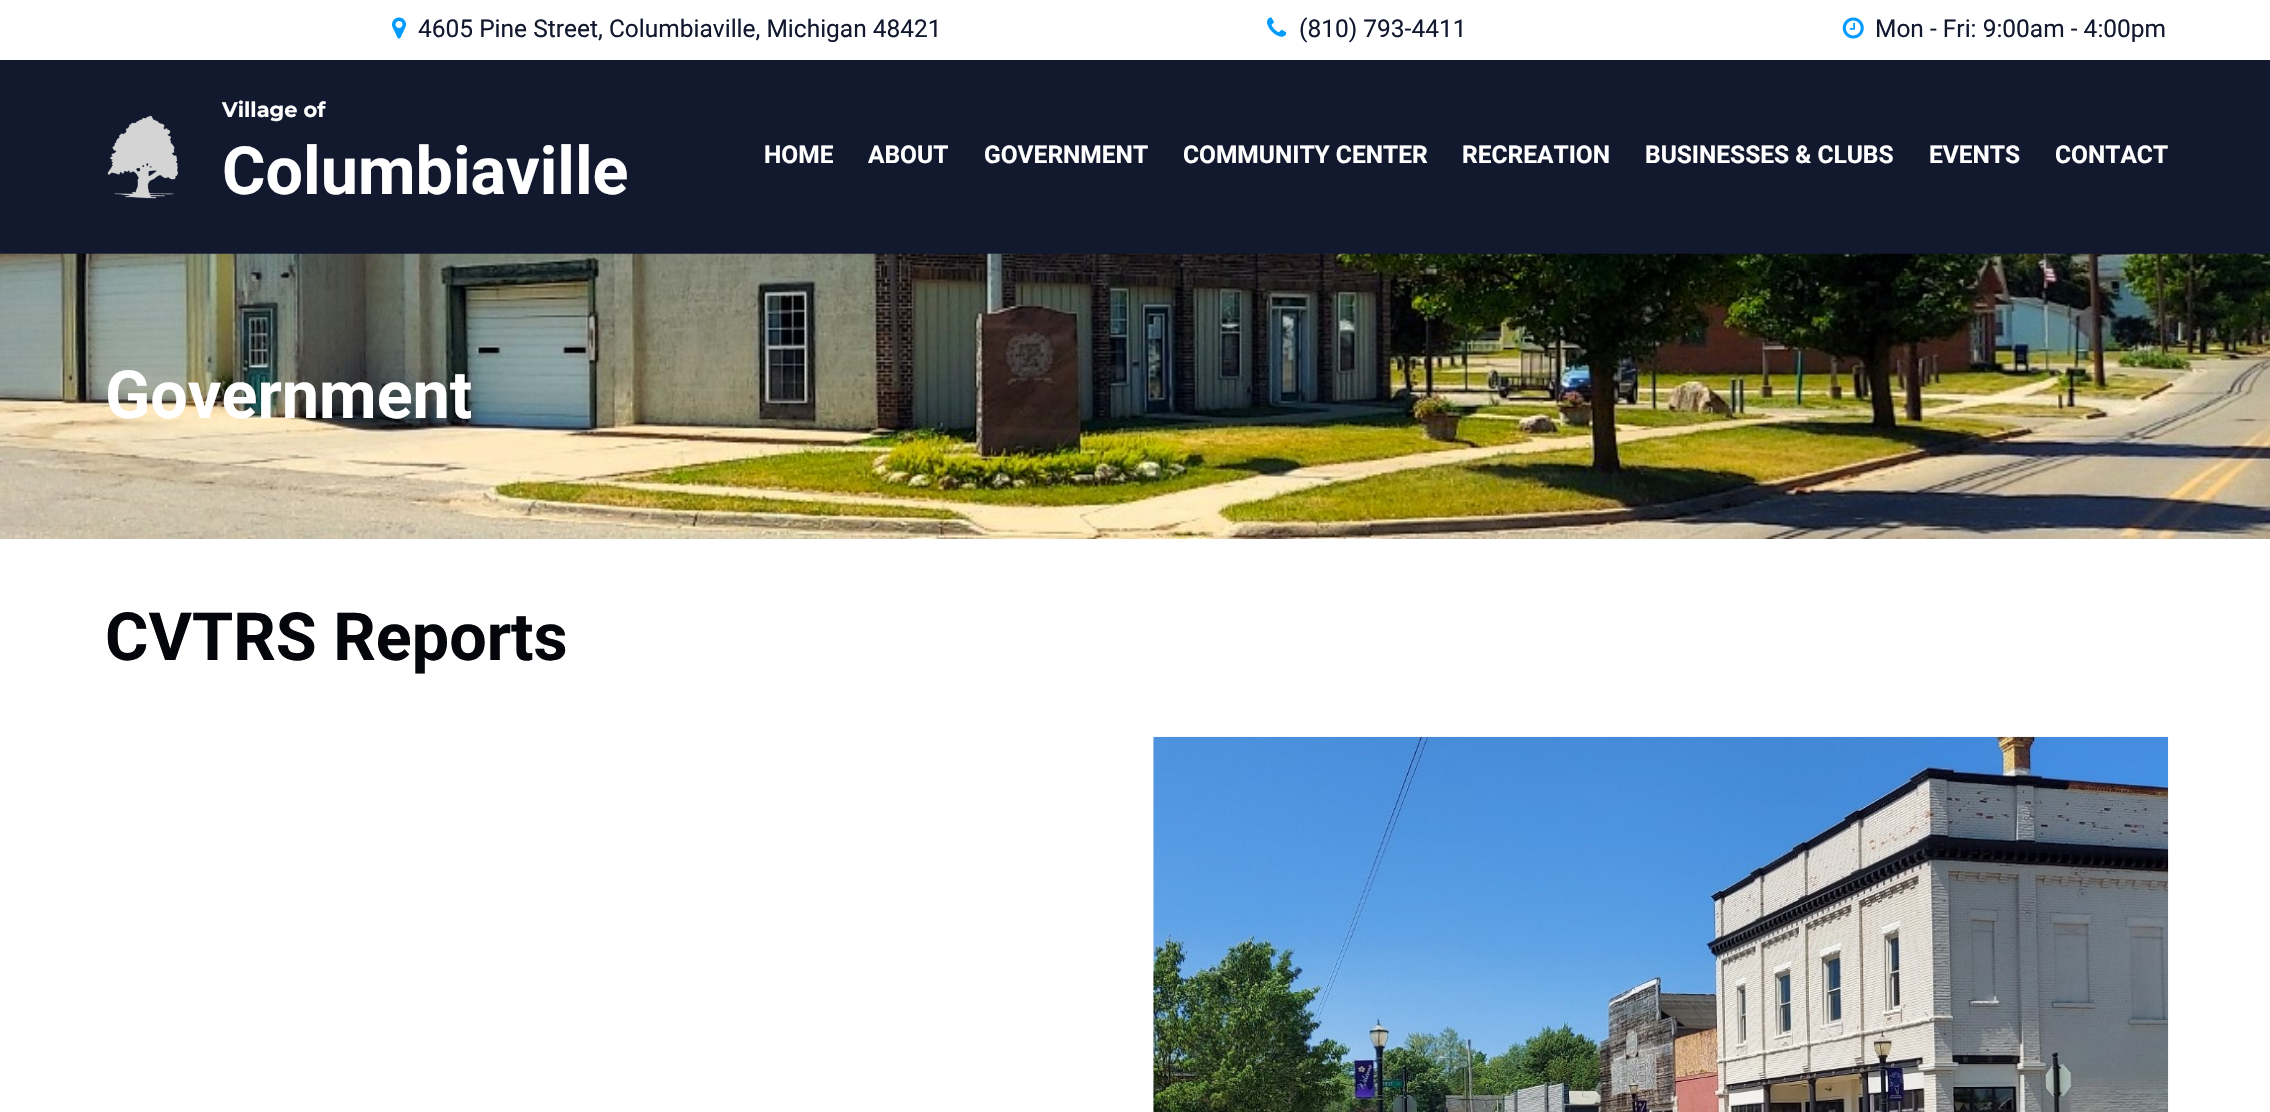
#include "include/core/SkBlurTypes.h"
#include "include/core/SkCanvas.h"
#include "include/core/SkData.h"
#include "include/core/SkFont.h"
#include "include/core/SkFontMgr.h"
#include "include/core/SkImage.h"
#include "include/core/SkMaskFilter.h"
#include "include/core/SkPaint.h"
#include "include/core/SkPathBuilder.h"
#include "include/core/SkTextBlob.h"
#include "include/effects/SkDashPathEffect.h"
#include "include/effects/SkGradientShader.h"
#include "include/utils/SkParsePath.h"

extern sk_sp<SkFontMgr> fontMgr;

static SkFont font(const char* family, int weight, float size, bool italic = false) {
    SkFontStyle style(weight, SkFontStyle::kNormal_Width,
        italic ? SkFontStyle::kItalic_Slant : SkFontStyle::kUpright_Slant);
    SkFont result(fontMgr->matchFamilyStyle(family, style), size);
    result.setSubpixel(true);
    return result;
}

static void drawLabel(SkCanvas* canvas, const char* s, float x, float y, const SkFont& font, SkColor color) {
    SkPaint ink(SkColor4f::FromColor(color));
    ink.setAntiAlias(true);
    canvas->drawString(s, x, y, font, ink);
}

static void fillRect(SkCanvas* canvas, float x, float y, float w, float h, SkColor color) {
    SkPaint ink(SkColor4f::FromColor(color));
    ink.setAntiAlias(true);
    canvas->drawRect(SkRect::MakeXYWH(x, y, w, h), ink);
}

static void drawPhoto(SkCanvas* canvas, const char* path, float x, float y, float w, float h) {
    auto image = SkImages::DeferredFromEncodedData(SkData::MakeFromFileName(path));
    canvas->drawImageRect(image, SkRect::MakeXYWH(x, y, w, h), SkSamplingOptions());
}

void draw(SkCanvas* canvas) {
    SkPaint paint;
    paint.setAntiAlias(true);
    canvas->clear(0xFFFFFFFF);
    drawPhoto(canvas, "assets/img1.png", 392, 17, 14, 22);
    SkFont font1 = font("Roboto", 400, 24.5f);
    drawLabel(canvas, "4605 Pine Street, Columbiaville, Michigan 48421", 418, 37, font1, 0xFF12192F);
    drawPhoto(canvas, "assets/img2.png", 1267, 17, 20, 20);
    drawLabel(canvas, "(810) 793-4411", 1299, 37, font1, 0xFF12192F);
    drawPhoto(canvas, "assets/img3.png", 1842, 17, 22, 22);
    drawLabel(canvas, "Mon - Fri: 9:00am - 4:00pm", 1875, 37, font1, 0xFF12192F);
    fillRect(canvas, 0, 60, 2270, 194, 0xFF12192F);
    drawPhoto(canvas, "assets/img4.png", 107, 115, 72, 84);
    SkFont font2 = font("Montserrat", 700, 21);
    drawLabel(canvas, "Village of", 222, 117, font2, 0xFFFFFFFF);
    SkFont font3 = font("Roboto", 700, 66.5f);
    drawLabel(canvas, "Columbiaville", 222, 194, font3, 0xFFFFFFFF);
    SkFont font4 = font("Roboto", 700, 24.5f);
    drawLabel(canvas, "HOME", 764, 163, font4, 0xFFFFFFFF);
    drawLabel(canvas, "ABOUT", 868, 163, font4, 0xFFFFFFFF);
    drawLabel(canvas, "GOVERNMENT", 984, 163, font4, 0xFFFFFFFF);
    drawLabel(canvas, "COMMUNITY CENTER", 1183, 163, font4, 0xFFFFFFFF);
    drawLabel(canvas, "RECREATION", 1462, 163, font4, 0xFFFFFFFF);
    drawLabel(canvas, "BUSINESSES & CLUBS", 1645, 163, font4, 0xFFFFFFFF);
    drawLabel(canvas, "EVENTS", 1929, 163, font4, 0xFFFFFFFF);
    drawLabel(canvas, "CONTACT", 2055, 163, font4, 0xFFFFFFFF);
    drawPhoto(canvas, "assets/img5.png", 0, 253, 2270, 286);
    drawLabel(canvas, "Government", 105, 418, font3, 0xFFFFFFFF);
    drawLabel(canvas, "CVTRS Reports", 105, 660, font3, 0xFF04060B);
    drawPhoto(canvas, "assets/img6.png", 1153, 736, 1016, 376);
}
